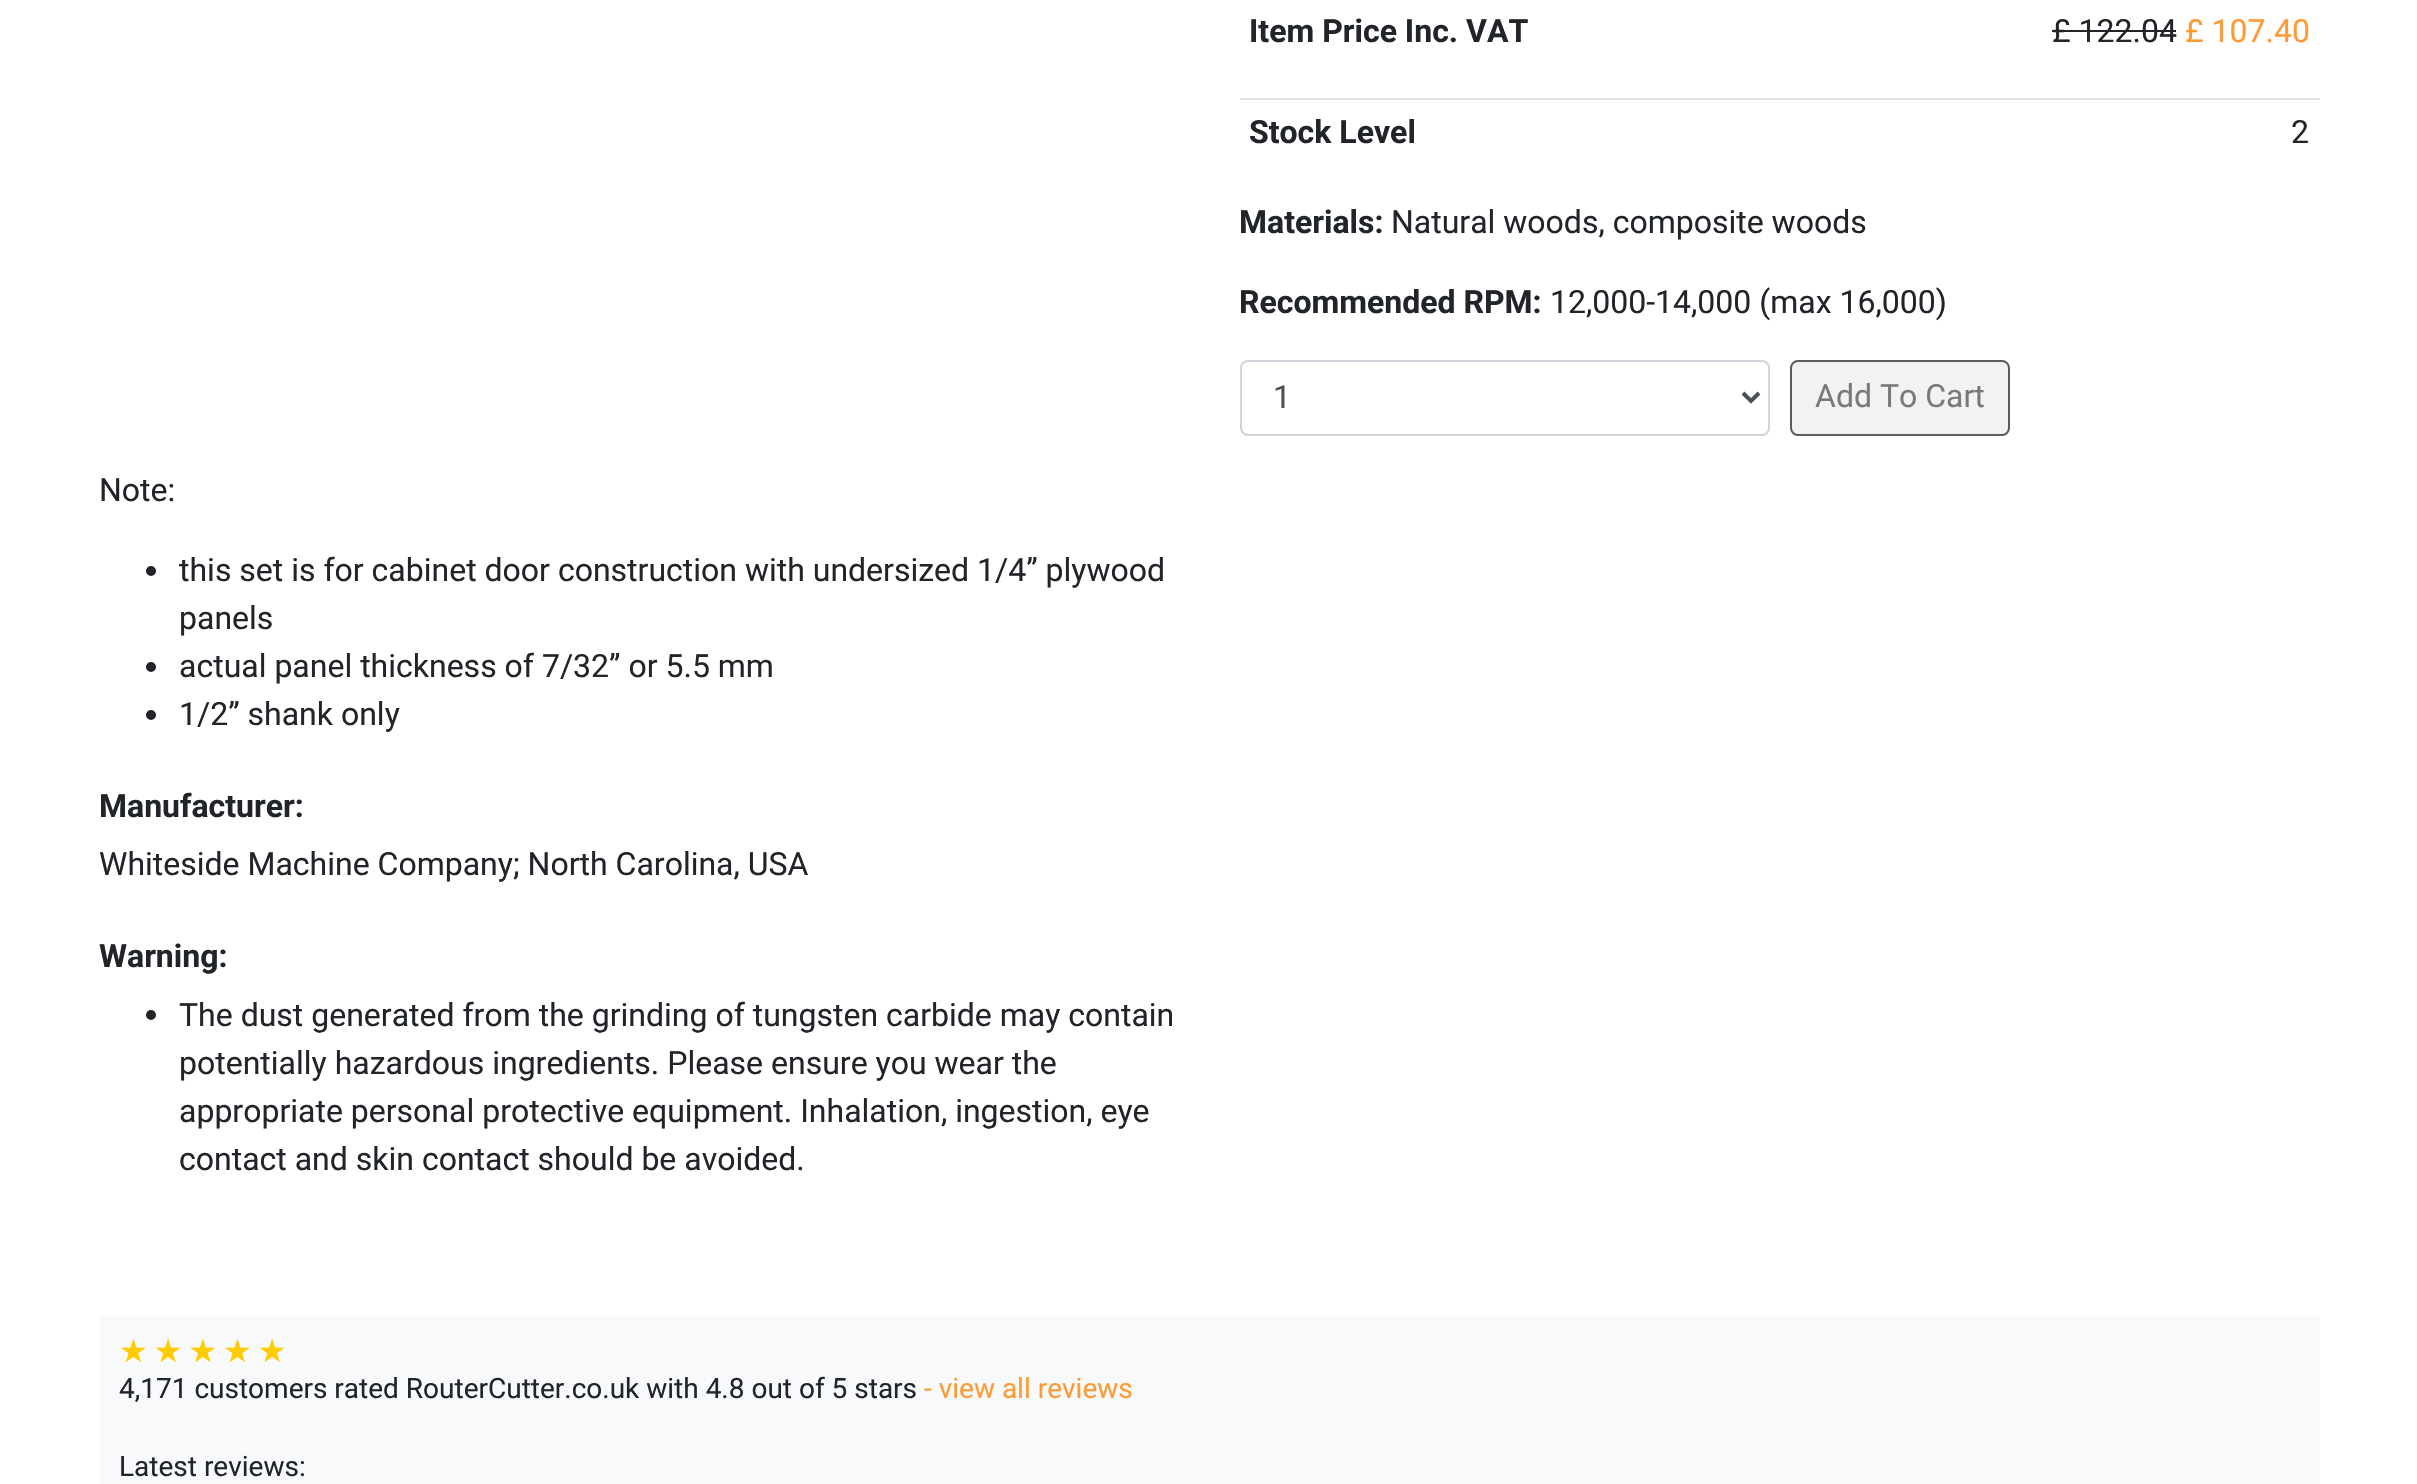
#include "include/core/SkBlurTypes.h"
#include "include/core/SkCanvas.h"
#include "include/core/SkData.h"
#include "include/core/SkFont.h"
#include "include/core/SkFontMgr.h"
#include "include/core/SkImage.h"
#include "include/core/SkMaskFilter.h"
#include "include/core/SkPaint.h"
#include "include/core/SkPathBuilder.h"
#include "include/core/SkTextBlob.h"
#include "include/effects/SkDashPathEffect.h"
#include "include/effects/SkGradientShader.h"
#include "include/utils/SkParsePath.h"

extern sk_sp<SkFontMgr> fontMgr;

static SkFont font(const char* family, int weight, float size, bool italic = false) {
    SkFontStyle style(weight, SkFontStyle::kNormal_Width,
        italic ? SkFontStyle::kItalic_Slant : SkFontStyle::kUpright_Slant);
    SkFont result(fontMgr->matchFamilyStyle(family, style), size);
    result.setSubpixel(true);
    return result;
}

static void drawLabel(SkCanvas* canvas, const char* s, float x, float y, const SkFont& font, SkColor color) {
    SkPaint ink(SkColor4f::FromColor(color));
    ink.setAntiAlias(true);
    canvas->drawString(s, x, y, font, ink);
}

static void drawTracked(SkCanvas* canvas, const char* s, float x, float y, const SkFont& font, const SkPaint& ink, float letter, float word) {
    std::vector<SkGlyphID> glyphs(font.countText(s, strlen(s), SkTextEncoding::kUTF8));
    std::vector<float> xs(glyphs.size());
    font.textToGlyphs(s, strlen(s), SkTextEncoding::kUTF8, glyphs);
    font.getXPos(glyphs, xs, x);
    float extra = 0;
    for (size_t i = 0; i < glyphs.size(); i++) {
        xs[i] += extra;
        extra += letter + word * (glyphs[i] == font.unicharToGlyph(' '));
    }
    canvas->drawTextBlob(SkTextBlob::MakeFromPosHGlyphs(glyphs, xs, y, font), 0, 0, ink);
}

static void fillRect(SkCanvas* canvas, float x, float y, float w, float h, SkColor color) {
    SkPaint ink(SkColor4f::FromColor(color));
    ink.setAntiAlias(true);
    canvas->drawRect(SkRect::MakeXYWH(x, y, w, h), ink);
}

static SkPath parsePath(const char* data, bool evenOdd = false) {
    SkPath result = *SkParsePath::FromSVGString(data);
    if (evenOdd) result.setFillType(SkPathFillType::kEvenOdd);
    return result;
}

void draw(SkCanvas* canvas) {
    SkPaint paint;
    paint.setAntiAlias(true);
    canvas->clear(0xFFFFFFFF);
    SkFont font1 = font("Roboto", 700, 32);
    drawLabel(canvas, "Item Price Inc. VAT", 1249, 42, font1, 0xFF212529);
    SkFont font2 = font("Roboto", 400, 32);
    drawLabel(canvas, "£ 122.04", 2052, 42, font2, 0xFF212529);
    fillRect(canvas, 2052, 30, 124, 2, 0xFF212529);
    drawLabel(canvas, "£ 107.40", 2185, 42, font2, 0xFFFF9933);
    drawLabel(canvas, "Stock Level", 1249, 143, font1, 0xFF212529);
    fillRect(canvas, 1240, 98, 1080, 2, 0xFFDEE2E6);
    drawLabel(canvas, "2", 2291, 143, font2, 0xFF212529);
    drawLabel(canvas, "Materials:", 1239, 233, font1, 0xFF212529);
    drawLabel(canvas, "Natural woods, composite woods", 1391, 233, font2, 0xFF212529);
    drawLabel(canvas, "Recommended RPM:", 1239, 313, font1, 0xFF212529);
    drawLabel(canvas, "12,000-14,000 (max 16,000)", 1550, 313, font2, 0xFF212529);
    paint.setStroke(true);
    paint.setStrokeWidth(2);
    paint.setColor(0xFFCED4DA);
    canvas->drawRoundRect(SkRect::MakeXYWH(1241, 361, 528, 74), 7, 7, paint);
    paint.setStrokeWidth(4);
    paint.setColor(0xFF495057);
    canvas->drawPath(parsePath("M1743 393L1751 401L1759 393"), paint);
    drawLabel(canvas, "1", 1273, 408, font2, 0xFF495057);
    paint.setStroke(false);
    paint.setColor(0xFFF2F2F2);
    canvas->drawRoundRect(SkRect::MakeXYWH(1791, 361, 218, 74), 7, 7, paint);
    paint.setStroke(true);
    paint.setStrokeWidth(2);
    paint.setColor(0xFF5C5C5C);
    canvas->drawRoundRect(SkRect::MakeXYWH(1791, 361, 218, 74), 7, 7, paint);
    drawLabel(canvas, "Add To Cart", 1815, 407, font2, 0xFF797979);
    drawLabel(canvas, "Note:", 99, 501, font2, 0xFF212529);
    paint.setStroke(false);
    paint.setColor(0xFF212529);
    canvas->drawCircle(151, 571, 5, paint);
    drawLabel(canvas, "this set is for cabinet door construction with undersized 1/4” plywood", 179, 581, font2, 0xFF212529);
    drawLabel(canvas, "panels", 179, 629, font2, 0xFF212529);
    canvas->drawCircle(151, 667, 5, paint);
    drawLabel(canvas, "actual panel thickness of 7/32” or 5.5 mm", 179, 677, font2, 0xFF212529);
    canvas->drawCircle(151, 715, 5, paint);
    drawLabel(canvas, "1/2” shank only", 179, 725, font2, 0xFF212529);
    drawLabel(canvas, "Manufacturer:", 99, 817, font1, 0xFF212529);
    drawLabel(canvas, "Whiteside Machine Company; North Carolina, USA", 99, 875, font2, 0xFF212529);
    drawLabel(canvas, "Warning:", 99, 967, font1, 0xFF212529);
    canvas->drawCircle(151, 1015, 5, paint);
    drawLabel(canvas, "The dust generated from the grinding of tungsten carbide may contain", 179, 1026, font2, 0xFF212529);
    drawLabel(canvas, "potentially hazardous ingredients. Please ensure you wear the", 179, 1074, font2, 0xFF212529);
    drawLabel(canvas, "appropriate personal protective equipment. Inhalation, ingestion, eye", 179, 1122, font2, 0xFF212529);
    drawLabel(canvas, "contact and skin contact should be avoided.", 179, 1170, font2, 0xFF212529);
    fillRect(canvas, 100, 1316, 2220, 168, 0xFFF8F9FA);
    SkFont font3 = font("DejaVu Sans", 400, 32);
    {
        const SkColor colors[] = {0xFFFFCC00, 0xFFEEEEEE};
        const float stops[] = {0.96f, 0.96f};
        const SkPoint ends[] = {{119, 1351}, {292, 1351}};
        paint.setShader(SkGradientShader::MakeLinear(ends, colors, stops, 2, SkTileMode::kClamp));
        paint.setAlpha(255);
    }
    drawTracked(canvas, "★★★★★", 119, 1362, font3, paint, 6, 0);
    SkFont font4 = font("Roboto", 400, 28);
    drawLabel(canvas, "4,171 customers rated RouterCutter.co.uk with 4.8 out of 5 stars", 119, 1398, font4, 0xFF212529);
    drawLabel(canvas, "- view all reviews", 924, 1398, font4, 0xFFFF9933);
    drawLabel(canvas, "Latest reviews:", 119, 1476, font4, 0xFF212529);
}
